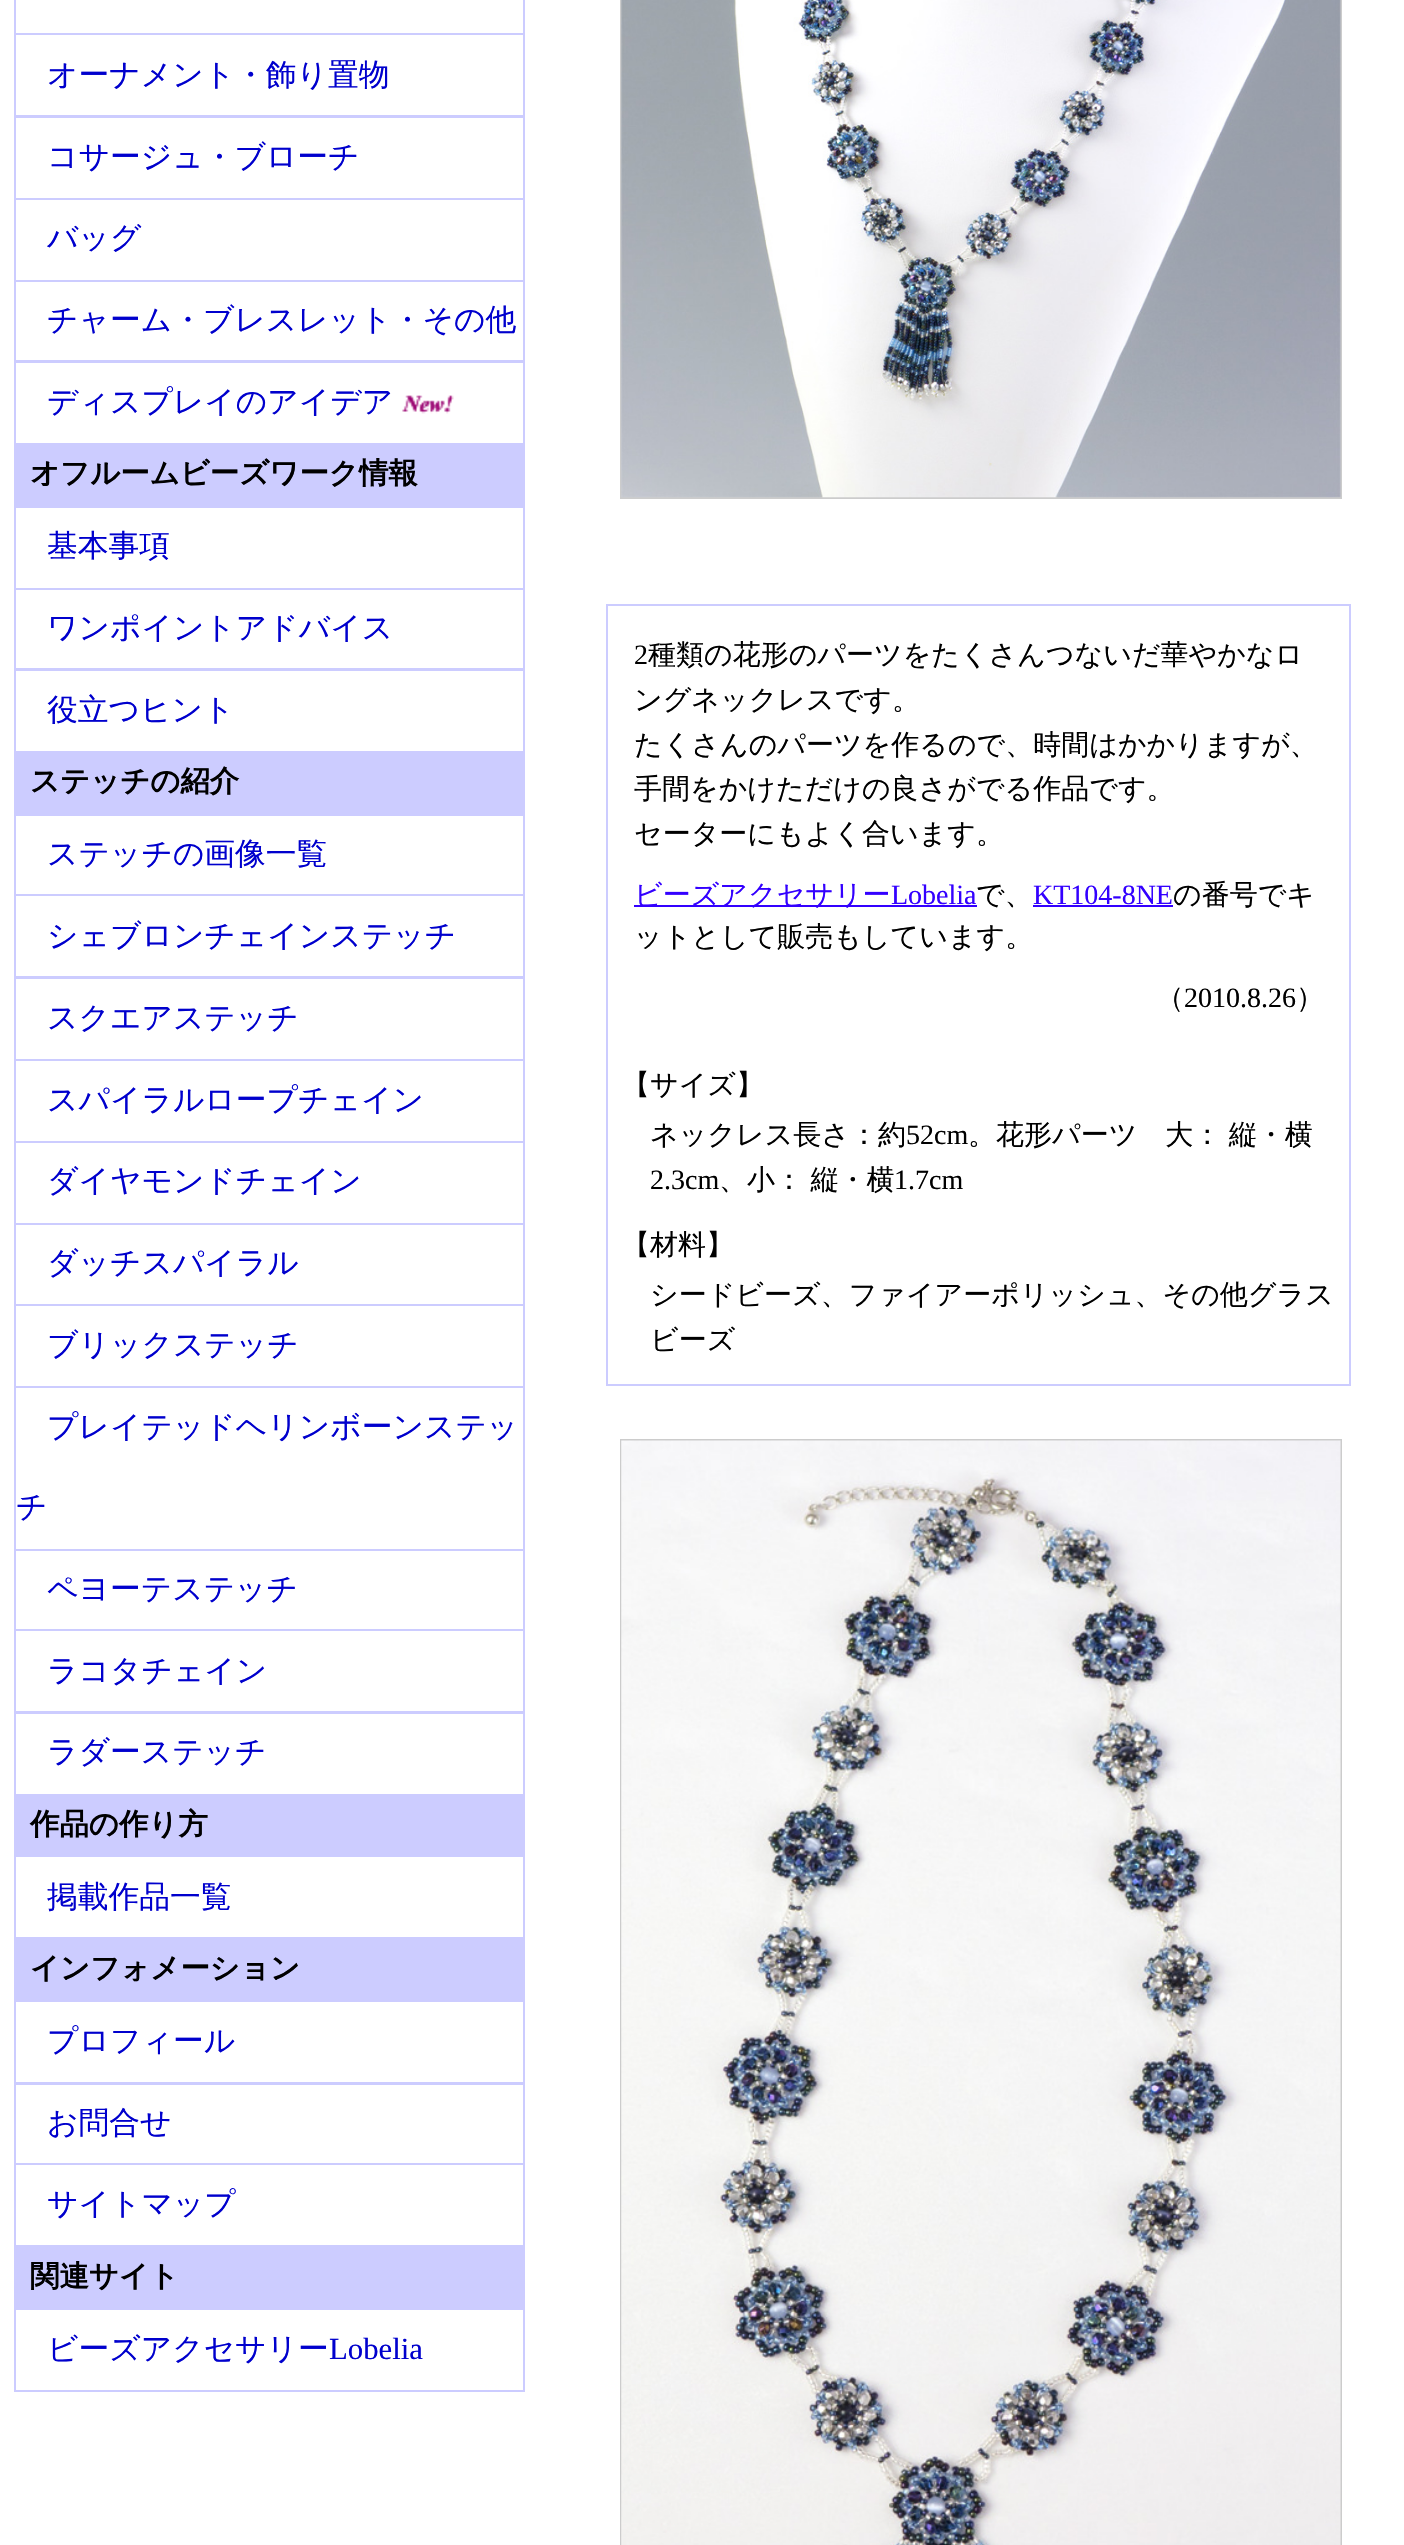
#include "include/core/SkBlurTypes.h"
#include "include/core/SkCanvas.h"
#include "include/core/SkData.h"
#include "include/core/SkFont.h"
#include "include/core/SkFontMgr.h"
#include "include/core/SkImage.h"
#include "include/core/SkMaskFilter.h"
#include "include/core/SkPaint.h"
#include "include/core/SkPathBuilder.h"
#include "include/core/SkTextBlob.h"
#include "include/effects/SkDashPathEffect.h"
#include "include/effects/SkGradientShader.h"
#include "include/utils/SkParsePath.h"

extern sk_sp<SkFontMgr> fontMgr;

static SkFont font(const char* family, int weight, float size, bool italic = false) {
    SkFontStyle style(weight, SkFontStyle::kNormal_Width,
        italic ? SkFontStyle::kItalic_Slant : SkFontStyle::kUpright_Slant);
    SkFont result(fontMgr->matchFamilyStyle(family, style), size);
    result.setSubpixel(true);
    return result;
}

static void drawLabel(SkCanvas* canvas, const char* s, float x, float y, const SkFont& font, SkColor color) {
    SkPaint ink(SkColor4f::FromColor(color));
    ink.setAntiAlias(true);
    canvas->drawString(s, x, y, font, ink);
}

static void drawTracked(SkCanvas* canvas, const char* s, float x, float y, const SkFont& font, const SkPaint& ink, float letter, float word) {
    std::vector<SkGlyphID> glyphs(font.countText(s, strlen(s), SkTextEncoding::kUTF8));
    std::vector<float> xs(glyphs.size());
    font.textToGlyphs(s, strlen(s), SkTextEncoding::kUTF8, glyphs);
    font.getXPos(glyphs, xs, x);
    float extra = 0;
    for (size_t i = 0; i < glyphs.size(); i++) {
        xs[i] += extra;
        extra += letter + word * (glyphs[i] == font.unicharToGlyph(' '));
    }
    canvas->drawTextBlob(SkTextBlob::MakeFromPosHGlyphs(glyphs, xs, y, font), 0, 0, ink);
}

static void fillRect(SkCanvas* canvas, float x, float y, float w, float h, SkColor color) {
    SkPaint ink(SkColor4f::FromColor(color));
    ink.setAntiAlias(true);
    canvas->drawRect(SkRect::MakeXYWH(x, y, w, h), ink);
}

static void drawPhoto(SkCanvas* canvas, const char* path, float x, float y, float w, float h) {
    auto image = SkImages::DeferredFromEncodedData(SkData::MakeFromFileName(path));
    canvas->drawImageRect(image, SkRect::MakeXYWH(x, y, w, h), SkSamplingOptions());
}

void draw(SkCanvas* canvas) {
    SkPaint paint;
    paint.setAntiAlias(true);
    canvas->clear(0xFFFFFFFF);
    paint.setStroke(true);
    paint.setStrokeWidth(2);
    paint.setColor(0xFFCCCCFF);
    canvas->drawRect(SkRect::MakeXYWH(15, -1, 509, 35), paint);
    canvas->drawRect(SkRect::MakeXYWH(15, 34, 509, 82), paint);
    SkFont font1 = font("WenQuanYi Zen Hei", 500, 30.75f);
    drawLabel(canvas, "オーナメント・飾り置物", 47, 85, font1, 0xFF0000CD);
    canvas->drawRect(SkRect::MakeXYWH(15, 117, 509, 82), paint);
    drawLabel(canvas, "コサージュ・ブローチ", 47, 167, font1, 0xFF0000CD);
    canvas->drawRect(SkRect::MakeXYWH(15, 199, 509, 82), paint);
    drawLabel(canvas, "バッグ", 47, 248, font1, 0xFF0000CD);
    canvas->drawRect(SkRect::MakeXYWH(15, 281, 509, 80), paint);
    drawLabel(canvas, "チャーム・ブレスレット・その他", 47, 330, font1, 0xFF0000CD);
    canvas->drawRect(SkRect::MakeXYWH(15, 362, 509, 82), paint);
    drawLabel(canvas, "ディスプレイのアイデア", 47, 412, font1, 0xFF0000CD);
    drawPhoto(canvas, "assets/img1.png", 402, 395, 52, 19);
    fillRect(canvas, 14, 445, 511, 61, 0xFFCCCCFF);
    SkFont font2 = font("WenQuanYi Zen Hei", 700, 29.4f);
    drawLabel(canvas, "オフルームビーズワーク情報", 30, 483, font2, 0xFF000000);
    canvas->drawRect(SkRect::MakeXYWH(15, 507, 509, 82), paint);
    drawLabel(canvas, "基本事項", 47, 556, font1, 0xFF0000CD);
    canvas->drawRect(SkRect::MakeXYWH(15, 589, 509, 80), paint);
    drawLabel(canvas, "ワンポイントアドバイス", 47, 638, font1, 0xFF0000CD);
    canvas->drawRect(SkRect::MakeXYWH(15, 670, 509, 82), paint);
    drawLabel(canvas, "役立つヒント", 47, 720, font1, 0xFF0000CD);
    fillRect(canvas, 14, 753, 511, 61, 0xFFCCCCFF);
    drawLabel(canvas, "ステッチの紹介", 30, 791, font2, 0xFF000000);
    canvas->drawRect(SkRect::MakeXYWH(15, 815, 509, 80), paint);
    drawLabel(canvas, "ステッチの画像一覧", 47, 864, font1, 0xFF0000CD);
    canvas->drawRect(SkRect::MakeXYWH(15, 895, 509, 82), paint);
    drawLabel(canvas, "シェブロンチェインステッチ", 47, 946, font1, 0xFF0000CD);
    canvas->drawRect(SkRect::MakeXYWH(15, 978, 509, 82), paint);
    drawLabel(canvas, "スクエアステッチ", 47, 1028, font1, 0xFF0000CD);
    canvas->drawRect(SkRect::MakeXYWH(15, 1060, 509, 82), paint);
    drawLabel(canvas, "スパイラルロープチェイン", 47, 1110, font1, 0xFF0000CD);
    canvas->drawRect(SkRect::MakeXYWH(15, 1142, 509, 82), paint);
    drawLabel(canvas, "ダイヤモンドチェイン", 47, 1191, font1, 0xFF0000CD);
    canvas->drawRect(SkRect::MakeXYWH(15, 1224, 509, 81), paint);
    drawLabel(canvas, "ダッチスパイラル", 47, 1273, font1, 0xFF0000CD);
    canvas->drawRect(SkRect::MakeXYWH(15, 1305, 509, 82), paint);
    drawLabel(canvas, "ブリックステッチ", 47, 1355, font1, 0xFF0000CD);
    canvas->drawRect(SkRect::MakeXYWH(15, 1387, 509, 163), paint);
    drawLabel(canvas, "プレイテッドヘリンボーンステッ", 47, 1437, font1, 0xFF0000CD);
    drawLabel(canvas, "チ", 16, 1517, font1, 0xFF0000CD);
    canvas->drawRect(SkRect::MakeXYWH(15, 1550, 509, 80), paint);
    drawLabel(canvas, "ペヨーテステッチ", 47, 1599, font1, 0xFF0000CD);
    canvas->drawRect(SkRect::MakeXYWH(15, 1630, 509, 82), paint);
    drawLabel(canvas, "ラコタチェイン", 47, 1681, font1, 0xFF0000CD);
    canvas->drawRect(SkRect::MakeXYWH(15, 1713, 509, 82), paint);
    drawLabel(canvas, "ラダーステッチ", 47, 1762, font1, 0xFF0000CD);
    fillRect(canvas, 14, 1796, 511, 59, 0xFFCCCCFF);
    drawLabel(canvas, "作品の作り方", 30, 1834, font2, 0xFF000000);
    canvas->drawRect(SkRect::MakeXYWH(15, 1856, 509, 82), paint);
    drawLabel(canvas, "掲載作品一覧", 47, 1907, font1, 0xFF0000CD);
    fillRect(canvas, 14, 1939, 511, 61, 0xFFCCCCFF);
    drawLabel(canvas, "インフォメーション", 30, 1978, font2, 0xFF000000);
    canvas->drawRect(SkRect::MakeXYWH(15, 2001, 509, 82), paint);
    drawLabel(canvas, "プロフィール", 47, 2051, font1, 0xFF0000CD);
    canvas->drawRect(SkRect::MakeXYWH(15, 2084, 509, 80), paint);
    drawLabel(canvas, "お問合せ", 47, 2133, font1, 0xFF0000CD);
    canvas->drawRect(SkRect::MakeXYWH(15, 2164, 509, 82), paint);
    drawLabel(canvas, "サイトマップ", 47, 2214, font1, 0xFF0000CD);
    fillRect(canvas, 14, 2247, 511, 61, 0xFFCCCCFF);
    drawLabel(canvas, "関連サイト", 30, 2286, font2, 0xFF000000);
    canvas->drawRect(SkRect::MakeXYWH(15, 2309, 509, 82), paint);
    drawLabel(canvas, "ビーズアクセサリー", 47, 2359, font1, 0xFF0000CD);
    SkFont font3 = font("Liberation Serif", 400, 30.75f);
    drawLabel(canvas, "Lobelia", 329, 2359, font3, 0xFF0000CD);
    paint.setColor(0xFFCCCCCC);
    canvas->drawRect(SkRect::MakeXYWH(621, -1, 720, 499), paint);
    drawPhoto(canvas, "assets/img2.png", 621, 0, 720, 498);
    paint.setColor(0xFFCCCCFF);
    canvas->drawRect(SkRect::MakeXYWH(607, 605, 743, 780), paint);
    SkFont font4 = font("Liberation Serif", 400, 28);
    drawLabel(canvas, "2", 634, 664, font4, 0xFF000000);
    SkFont font5 = font("WenQuanYi Zen Hei", 500, 28);
    drawLabel(canvas, "種類の花形のパーツをたくさんつないだ華やかなロ", 648, 664, font5, 0xFF000000);
    drawLabel(canvas, "ングネックレスです。", 634, 709, font5, 0xFF000000);
    drawLabel(canvas, "たくさんのパーツを作るので、時間はかかりますが、", 634, 754, font5, 0xFF000000);
    drawLabel(canvas, "手間をかけただけの良さがでる作品です。", 634, 798, font5, 0xFF000000);
    drawLabel(canvas, "セーターにもよく合います。", 634, 843, font5, 0xFF000000);
    fillRect(canvas, 634, 905, 343, 2, 0xFF3300FF);
    drawLabel(canvas, "ビーズアクセサリー", 634, 904, font5, 0xFF3300FF);
    drawLabel(canvas, "Lobelia", 891, 904, font4, 0xFF3300FF);
    drawLabel(canvas, "で、", 976, 904, font5, 0xFF000000);
    drawLabel(canvas, "KT104-8NE", 1033, 904, font4, 0xFF3300FF);
    fillRect(canvas, 1033, 905, 140, 2, 0xFF3300FF);
    drawLabel(canvas, "の番号でキ", 1173, 904, font5, 0xFF000000);
    drawLabel(canvas, "ットとして販売もしています。", 634, 946, font5, 0xFF000000);
    drawLabel(canvas, "（", 1156, 1007, font5, 0xFF000000);
    drawLabel(canvas, "2010.8.26", 1184, 1007, font4, 0xFF000000);
    drawLabel(canvas, "）", 1296, 1007, font5, 0xFF000000);
    drawLabel(canvas, "【サイズ】", 622, 1094, font5, 0xFF000000);
    drawLabel(canvas, "ネックレス長さ：約", 650, 1144, font5, 0xFF000000);
    drawLabel(canvas, "52cm", 906, 1144, font4, 0xFF000000);
    paint.setStroke(false);
    paint.setColor(0xFF000000);
    drawTracked(canvas, "。花形パーツ　大： 縦・横", 968, 1144, font5, paint, 0, -1);
    drawLabel(canvas, "2.3cm", 650, 1189, font4, 0xFF000000);
    drawTracked(canvas, "、小： 縦・横", 719, 1189, font5, paint, 0, -1);
    drawLabel(canvas, "1.7cm", 894, 1189, font4, 0xFF000000);
    drawLabel(canvas, "【材料】", 622, 1254, font5, 0xFF000000);
    drawLabel(canvas, "シードビーズ、ファイアーポリッシュ、その他グラス", 650, 1304, font5, 0xFF000000);
    drawLabel(canvas, "ビーズ", 650, 1349, font5, 0xFF000000);
    paint.setStroke(true);
    paint.setColor(0xFFCCCCCC);
    canvas->drawRect(SkRect::MakeXYWH(621, 1440, 720, 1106), paint);
    drawPhoto(canvas, "assets/img3.png", 621, 1440, 720, 1105);
}
